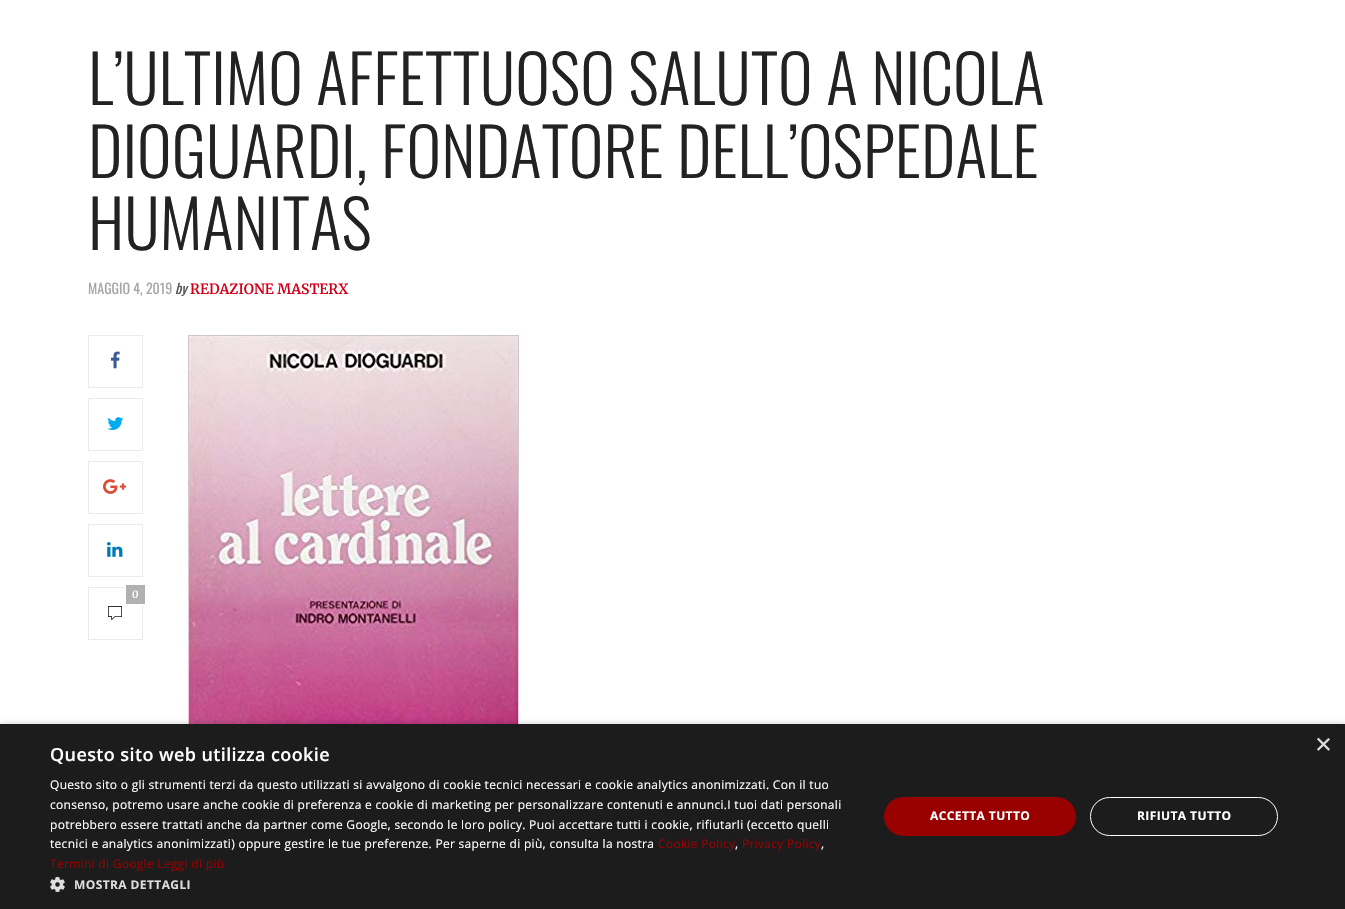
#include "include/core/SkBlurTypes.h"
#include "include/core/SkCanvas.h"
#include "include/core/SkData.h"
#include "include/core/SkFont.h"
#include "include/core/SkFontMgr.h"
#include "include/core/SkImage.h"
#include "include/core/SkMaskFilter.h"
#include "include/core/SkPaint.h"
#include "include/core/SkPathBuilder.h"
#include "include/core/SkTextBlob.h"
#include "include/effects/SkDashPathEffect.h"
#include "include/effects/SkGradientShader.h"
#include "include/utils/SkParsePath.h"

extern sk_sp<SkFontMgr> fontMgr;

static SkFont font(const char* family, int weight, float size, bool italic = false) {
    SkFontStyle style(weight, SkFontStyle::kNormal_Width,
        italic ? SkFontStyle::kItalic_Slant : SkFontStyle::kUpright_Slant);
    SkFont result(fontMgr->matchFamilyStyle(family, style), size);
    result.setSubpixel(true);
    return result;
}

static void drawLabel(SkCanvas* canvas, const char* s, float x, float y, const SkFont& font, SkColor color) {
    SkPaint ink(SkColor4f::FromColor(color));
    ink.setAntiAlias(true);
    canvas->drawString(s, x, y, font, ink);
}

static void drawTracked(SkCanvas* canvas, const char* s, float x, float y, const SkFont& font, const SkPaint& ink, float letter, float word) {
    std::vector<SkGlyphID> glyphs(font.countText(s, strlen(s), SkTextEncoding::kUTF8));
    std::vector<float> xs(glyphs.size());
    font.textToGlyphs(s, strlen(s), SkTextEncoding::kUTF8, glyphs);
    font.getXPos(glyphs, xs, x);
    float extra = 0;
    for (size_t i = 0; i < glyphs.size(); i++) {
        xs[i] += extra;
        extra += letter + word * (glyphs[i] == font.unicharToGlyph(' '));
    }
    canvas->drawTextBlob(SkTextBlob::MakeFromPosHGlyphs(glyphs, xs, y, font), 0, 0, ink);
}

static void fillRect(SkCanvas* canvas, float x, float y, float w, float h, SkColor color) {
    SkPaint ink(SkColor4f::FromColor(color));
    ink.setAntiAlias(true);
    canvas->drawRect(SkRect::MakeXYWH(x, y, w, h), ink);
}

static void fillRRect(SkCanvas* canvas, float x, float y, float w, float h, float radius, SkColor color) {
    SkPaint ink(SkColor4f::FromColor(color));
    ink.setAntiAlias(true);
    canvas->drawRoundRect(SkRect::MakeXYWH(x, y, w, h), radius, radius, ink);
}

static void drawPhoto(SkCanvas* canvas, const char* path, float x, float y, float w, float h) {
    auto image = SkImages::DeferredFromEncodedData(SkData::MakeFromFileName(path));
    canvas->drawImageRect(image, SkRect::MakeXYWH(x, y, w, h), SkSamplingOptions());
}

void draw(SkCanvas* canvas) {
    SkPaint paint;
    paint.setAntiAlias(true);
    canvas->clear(0xFFFFFFFF);
    SkFont font1 = font("Oswald", 300, 66);
    drawLabel(canvas, "L’ULTIMO AFFETTUOSO SALUTO A NICOLA", 88, 105, font1, 0xFF222222);
    drawLabel(canvas, "DIOGUARDI, FONDATORE DELL’OSPEDALE", 88, 178, font1, 0xFF222222);
    drawLabel(canvas, "HUMANITAS", 88, 250, font1, 0xFF222222);
    SkFont font2 = font("Oswald", 400, 14);
    drawLabel(canvas, "MAGGIO 4, 2019", 88, 294, font2, 0xFFA7A7A7);
    SkFont font3 = font("Oswald", 400, 14, true);
    drawLabel(canvas, "by", 175, 294, font3, 0xFF545353);
    SkFont font4 = font("Merriweather", 600, 14);
    drawLabel(canvas, "REDAZIONE MASTERX", 190, 294, font4, 0xFFD10019);
    paint.setStroke(true);
    paint.setStrokeWidth(1);
    paint.setColor(0xFFEAEAEA);
    canvas->drawRect(SkRect::MakeXYWH(88.5f, 335.5f, 54, 52), paint);
    drawPhoto(canvas, "assets/img1.png", 110, 351, 10, 18);
    canvas->drawRect(SkRect::MakeXYWH(88.5f, 398.5f, 54, 52), paint);
    drawPhoto(canvas, "assets/img2.png", 107, 417, 17, 13);
    canvas->drawRect(SkRect::MakeXYWH(88.5f, 461.5f, 54, 52), paint);
    drawPhoto(canvas, "assets/img3.png", 103, 479, 24, 15);
    canvas->drawRect(SkRect::MakeXYWH(88.5f, 524.5f, 54, 52), paint);
    drawPhoto(canvas, "assets/img4.png", 107, 542, 16, 15);
    canvas->drawRect(SkRect::MakeXYWH(88.5f, 587.5f, 54, 52), paint);
    fillRect(canvas, 126, 585, 19, 19, 0xFFB1B1B1);
    fillRect(canvas, 142, 604, 3, 1, 0xFFFFFFFF);
    fillRect(canvas, 125, 585, 1, 3, 0xFFFFFFFF);
    SkFont font5 = font("Merriweather", 600, 10);
    drawLabel(canvas, "0", 132, 598, font5, 0xFFFFFFFF);
    drawPhoto(canvas, "assets/img5.png", 108, 606, 14, 14);
    drawPhoto(canvas, "assets/img6.png", 188, 335, 331, 389);
    paint.setStroke(false);
    paint.setColor(0x59000000);
    paint.setMaskFilter(SkMaskFilter::MakeBlur(kNormal_SkBlurStyle, 4));
    canvas->drawRect(SkRect::MakeXYWH(1, 726, 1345, 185), paint);
    paint.setMaskFilter(nullptr);
    fillRect(canvas, 0, 724, 1345, 185, 0xFF1C1C1C);
    SkFont font6 = font("Liberation Sans", 400, 29);
    drawLabel(canvas, "×", 1315, 754, font6, 0xFFDDDDDD);
    SkFont font7 = font("Open Sans", 600, 18);
    paint.setColor(0xFFFFFFFF);
    drawTracked(canvas, "Questo sito web utilizza cookie", 50, 761, font7, paint, 0.4f, 0);
    SkFont font8 = font("Open Sans", 400, 12);
    drawTracked(canvas, "Questo sito o gli strumenti terzi da questo utilizzati si avvalgono di cookie tecnici necessari e cookie analytics anonimizzati. Con il tuo", 50, 789, font8, paint, 0.3f, 0);
    drawTracked(canvas, "consenso, potremo usare anche cookie di preferenza e cookie di marketing per personalizzare contenuti e annunci.I tuoi dati personali", 50, 809, font8, paint, 0.3f, 0);
    drawTracked(canvas, "potrebbero essere trattati anche da partner come Google, secondo le loro policy. Puoi accettare tutti i cookie, rifiutarli (eccetto quelli", 50, 829, font8, paint, 0.3f, 0);
    drawTracked(canvas, "tecnici e analytics anonimizzati) oppure gestire le tue preferenze. Per saperne di più, consulta la nostra", 50, 848, font8, paint, 0.3f, 0);
    paint.setColor(0xFF990000);
    drawTracked(canvas, "Cookie Policy", 658, 848, font8, paint, 0.3f, 0);
    paint.setColor(0xFFFFFFFF);
    drawTracked(canvas, ",", 735, 848, font8, paint, 0.3f, 0);
    paint.setColor(0xFF990000);
    drawTracked(canvas, "Privacy Policy", 742, 848, font8, paint, 0.3f, 0);
    paint.setColor(0xFFFFFFFF);
    drawTracked(canvas, ",", 821, 848, font8, paint, 0.3f, 0);
    paint.setColor(0xFF990000);
    drawTracked(canvas, "Termini di Google Leggi di più", 50, 868, font8, paint, 0.3f, 0);
    drawPhoto(canvas, "assets/img7.png", 50, 877, 15, 15);
    SkFont font9 = font("Open Sans", 700, 12);
    paint.setColor(0xFFDDDDDD);
    drawTracked(canvas, "MOSTRA DETTAGLI", 74, 889, font9, paint, 0.4f, 0);
    fillRRect(canvas, 884, 797, 192, 39, 19.5f, 0xFF990000);
    paint.setColor(0xFFFFFFFF);
    drawTracked(canvas, "ACCETTA TUTTO", 930, 820, font9, paint, 0.4f, 0);
    paint.setStroke(true);
    canvas->drawRoundRect(SkRect::MakeXYWH(1090.5f, 797.5f, 187, 38), 19, 19, paint);
    paint.setStroke(false);
    drawTracked(canvas, "RIFIUTA TUTTO", 1137, 820, font9, paint, 0.4f, 0);
}
